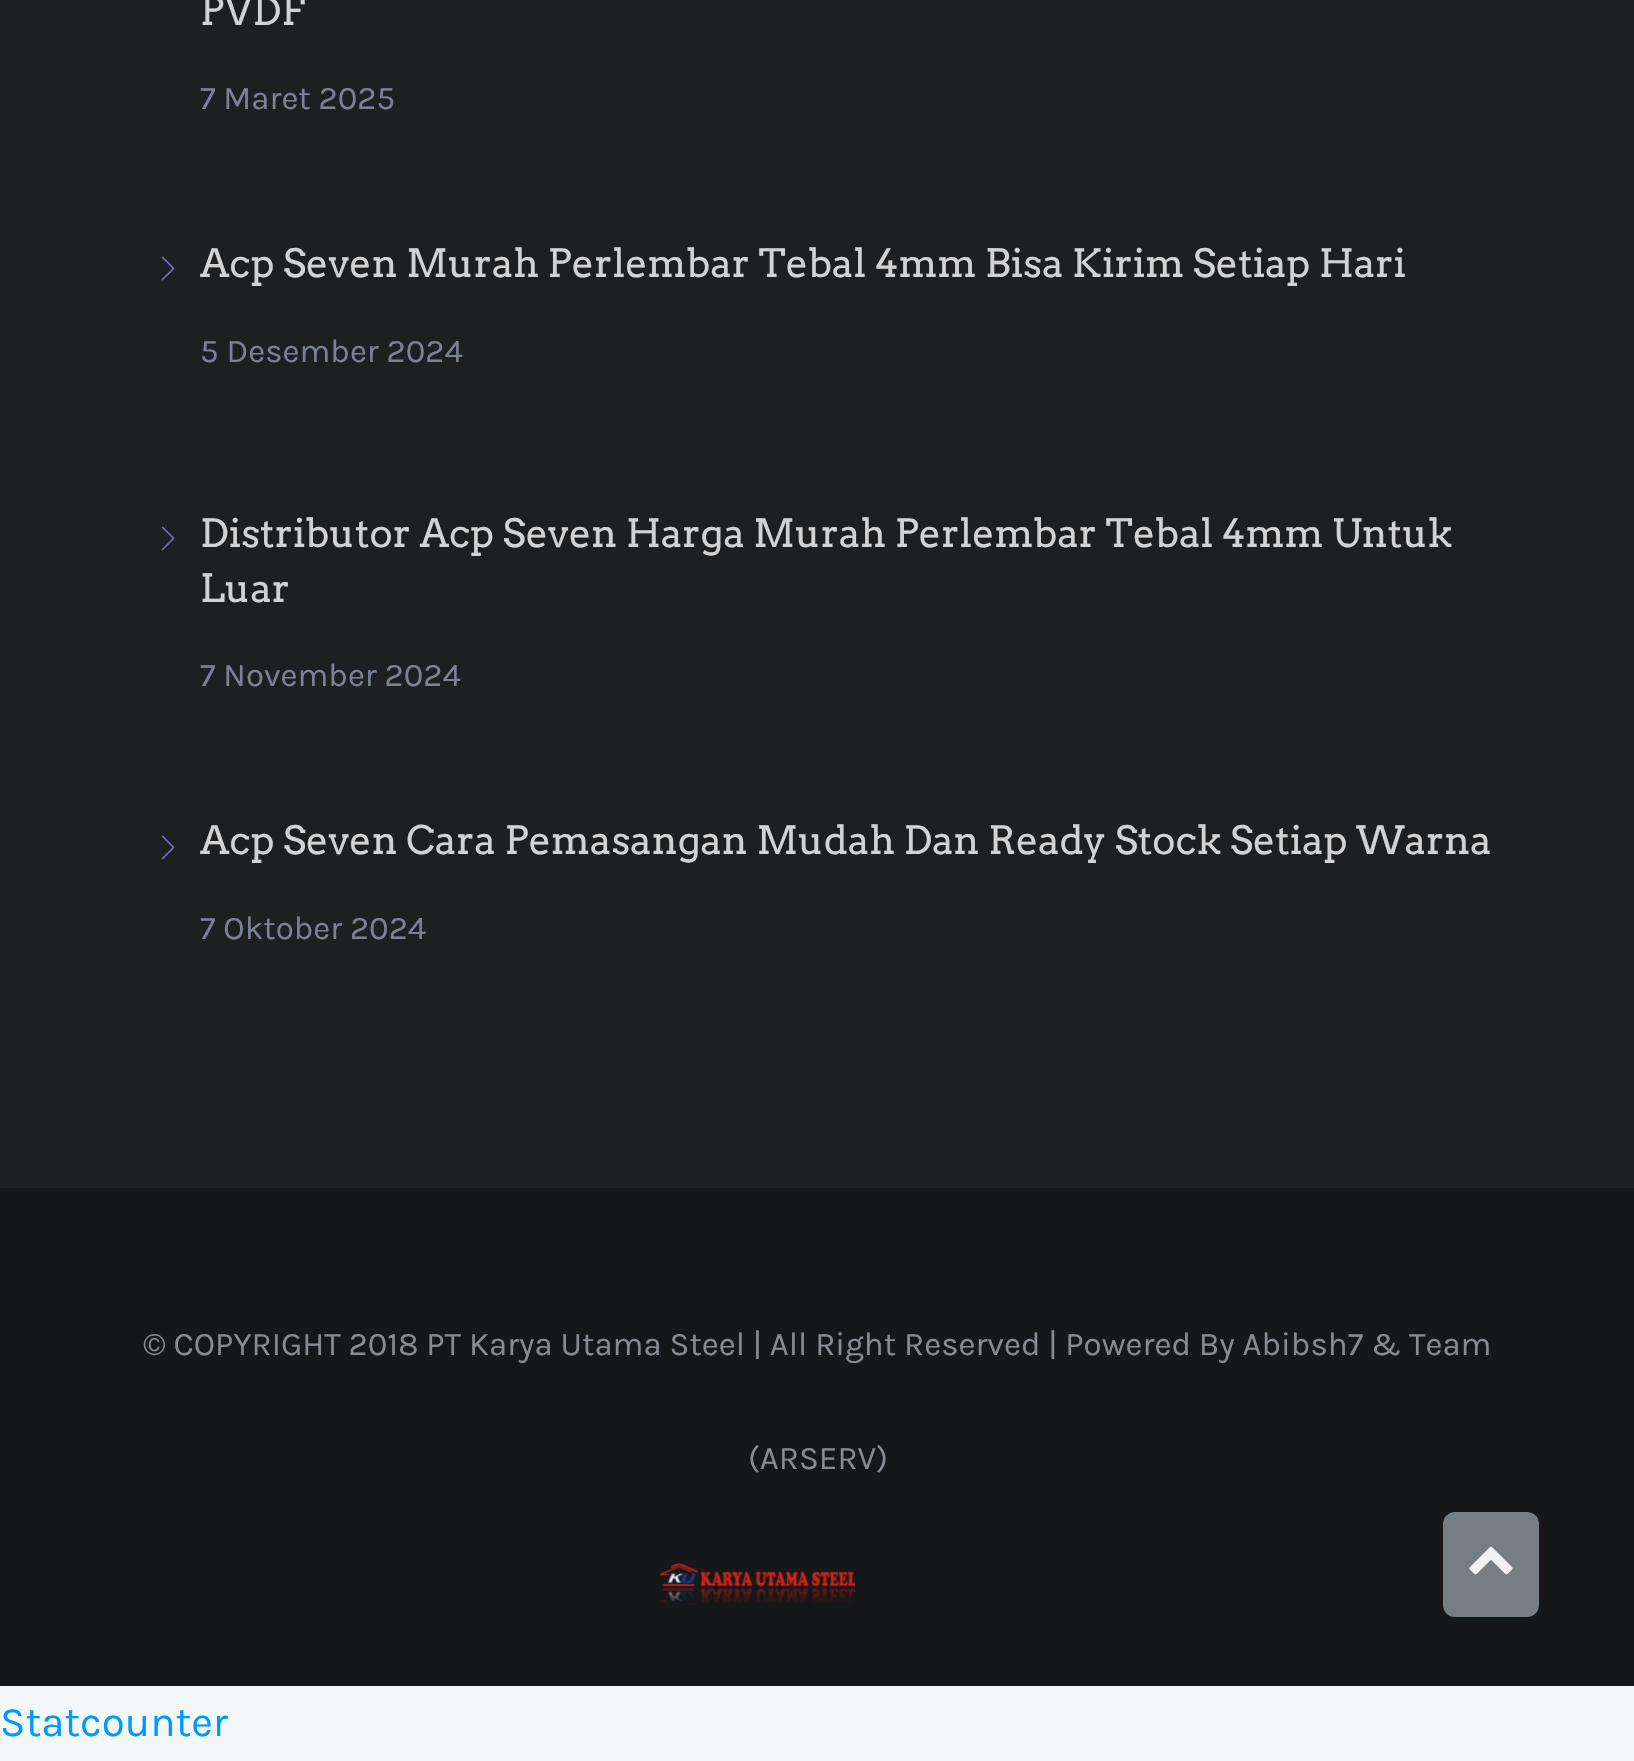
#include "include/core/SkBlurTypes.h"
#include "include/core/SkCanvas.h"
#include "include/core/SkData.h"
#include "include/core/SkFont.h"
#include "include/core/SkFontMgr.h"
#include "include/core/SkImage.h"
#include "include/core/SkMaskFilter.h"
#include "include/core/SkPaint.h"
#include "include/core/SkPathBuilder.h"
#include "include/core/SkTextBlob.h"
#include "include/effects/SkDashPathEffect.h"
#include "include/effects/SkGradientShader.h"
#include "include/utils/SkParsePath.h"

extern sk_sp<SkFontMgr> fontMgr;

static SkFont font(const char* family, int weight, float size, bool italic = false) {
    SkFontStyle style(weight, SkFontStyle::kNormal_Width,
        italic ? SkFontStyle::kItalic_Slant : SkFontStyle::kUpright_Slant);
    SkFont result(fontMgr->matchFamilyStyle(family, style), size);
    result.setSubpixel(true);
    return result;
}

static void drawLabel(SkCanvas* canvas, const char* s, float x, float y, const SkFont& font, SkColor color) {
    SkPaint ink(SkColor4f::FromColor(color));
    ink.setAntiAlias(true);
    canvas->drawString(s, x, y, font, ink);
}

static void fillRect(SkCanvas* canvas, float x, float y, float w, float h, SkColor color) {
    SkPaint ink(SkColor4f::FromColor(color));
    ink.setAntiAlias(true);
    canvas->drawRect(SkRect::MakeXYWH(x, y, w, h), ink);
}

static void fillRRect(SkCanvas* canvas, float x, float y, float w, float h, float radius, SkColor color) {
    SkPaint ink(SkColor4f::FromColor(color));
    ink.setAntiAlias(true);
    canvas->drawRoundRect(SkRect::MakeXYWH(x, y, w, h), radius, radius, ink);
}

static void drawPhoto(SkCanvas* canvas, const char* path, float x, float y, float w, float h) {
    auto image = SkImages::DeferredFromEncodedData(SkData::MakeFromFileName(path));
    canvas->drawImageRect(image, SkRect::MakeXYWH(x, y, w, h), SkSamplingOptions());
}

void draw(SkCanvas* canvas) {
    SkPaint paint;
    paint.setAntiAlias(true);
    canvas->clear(0xFFF4F7F8);
    fillRect(canvas, 0, 0, 1634, 1188, 0xFF1E1F21);
    SkFont font1 = font("Arvo", 400, 39);
    drawLabel(canvas, "PVDF", 200, 25, font1, 0xFFD2D2D2);
    SkFont font2 = font("Karla", 400, 33);
    drawLabel(canvas, "7 Maret 2025", 200, 109, font2, 0xFF7D8195);
    drawPhoto(canvas, "assets/img1.png", 161, 256, 14, 25);
    drawLabel(canvas, "Acp Seven Murah Perlembar Tebal 4mm Bisa Kirim Setiap Hari", 200, 277, font1, 0xFFD2D2D2);
    drawLabel(canvas, "5 Desember 2024", 200, 362, font2, 0xFF7D8195);
    drawPhoto(canvas, "assets/img1.png", 161, 526, 14, 25);
    drawLabel(canvas, "Distributor Acp Seven Harga Murah Perlembar Tebal 4mm Untuk", 200, 547, font1, 0xFFD2D2D2);
    drawLabel(canvas, "Luar", 200, 602, font1, 0xFFD2D2D2);
    drawLabel(canvas, "7 November 2024", 200, 686, font2, 0xFF7D8195);
    drawPhoto(canvas, "assets/img1.png", 161, 835, 14, 25);
    drawLabel(canvas, "Acp Seven Cara Pemasangan Mudah Dan Ready Stock Setiap Warna", 200, 854, font1, 0xFFD2D2D2);
    drawLabel(canvas, "7 Oktober 2024", 200, 939, font2, 0xFF7D8195);
    fillRect(canvas, 0, 1188, 1634, 498, 0xFF161719);
    drawLabel(canvas, "© COPYRIGHT 2018 PT Karya Utama Steel | All Right Reserved | Powered By Abibsh7 & Team", 143, 1355, font2, 0xFF898B92);
    drawLabel(canvas, "(ARSERV)", 748, 1469, font2, 0xFF898B92);
    drawPhoto(canvas, "assets/img2.png", 660, 1563, 195, 42);
    fillRRect(canvas, 1443, 1512, 96, 105, 12, 0xFF757F83);
    drawPhoto(canvas, "assets/img3.png", 1469, 1546, 44, 29);
    SkFont font3 = font("Karla", 400, 42);
    drawLabel(canvas, "Statcounter", 0, 1736, font3, 0xFF0099FF);
}
